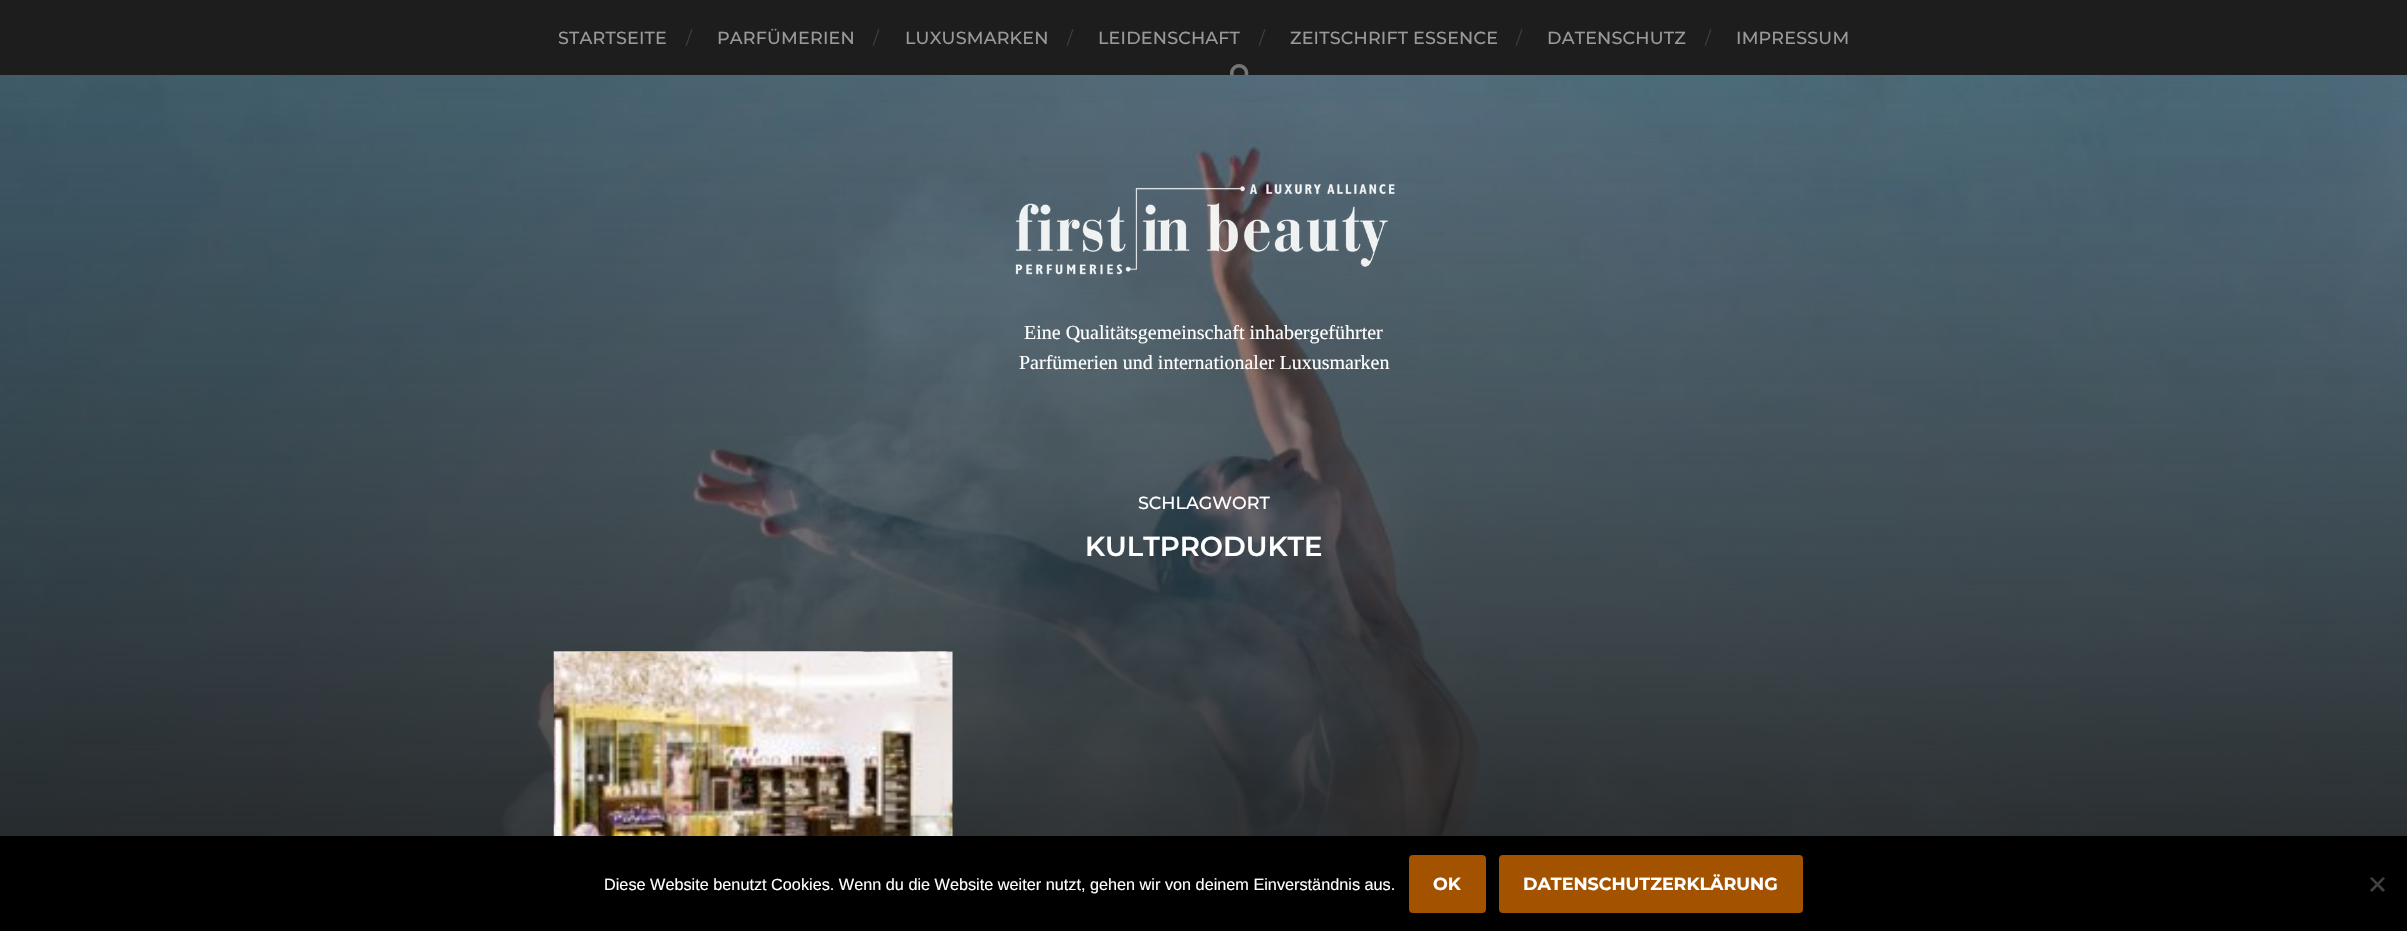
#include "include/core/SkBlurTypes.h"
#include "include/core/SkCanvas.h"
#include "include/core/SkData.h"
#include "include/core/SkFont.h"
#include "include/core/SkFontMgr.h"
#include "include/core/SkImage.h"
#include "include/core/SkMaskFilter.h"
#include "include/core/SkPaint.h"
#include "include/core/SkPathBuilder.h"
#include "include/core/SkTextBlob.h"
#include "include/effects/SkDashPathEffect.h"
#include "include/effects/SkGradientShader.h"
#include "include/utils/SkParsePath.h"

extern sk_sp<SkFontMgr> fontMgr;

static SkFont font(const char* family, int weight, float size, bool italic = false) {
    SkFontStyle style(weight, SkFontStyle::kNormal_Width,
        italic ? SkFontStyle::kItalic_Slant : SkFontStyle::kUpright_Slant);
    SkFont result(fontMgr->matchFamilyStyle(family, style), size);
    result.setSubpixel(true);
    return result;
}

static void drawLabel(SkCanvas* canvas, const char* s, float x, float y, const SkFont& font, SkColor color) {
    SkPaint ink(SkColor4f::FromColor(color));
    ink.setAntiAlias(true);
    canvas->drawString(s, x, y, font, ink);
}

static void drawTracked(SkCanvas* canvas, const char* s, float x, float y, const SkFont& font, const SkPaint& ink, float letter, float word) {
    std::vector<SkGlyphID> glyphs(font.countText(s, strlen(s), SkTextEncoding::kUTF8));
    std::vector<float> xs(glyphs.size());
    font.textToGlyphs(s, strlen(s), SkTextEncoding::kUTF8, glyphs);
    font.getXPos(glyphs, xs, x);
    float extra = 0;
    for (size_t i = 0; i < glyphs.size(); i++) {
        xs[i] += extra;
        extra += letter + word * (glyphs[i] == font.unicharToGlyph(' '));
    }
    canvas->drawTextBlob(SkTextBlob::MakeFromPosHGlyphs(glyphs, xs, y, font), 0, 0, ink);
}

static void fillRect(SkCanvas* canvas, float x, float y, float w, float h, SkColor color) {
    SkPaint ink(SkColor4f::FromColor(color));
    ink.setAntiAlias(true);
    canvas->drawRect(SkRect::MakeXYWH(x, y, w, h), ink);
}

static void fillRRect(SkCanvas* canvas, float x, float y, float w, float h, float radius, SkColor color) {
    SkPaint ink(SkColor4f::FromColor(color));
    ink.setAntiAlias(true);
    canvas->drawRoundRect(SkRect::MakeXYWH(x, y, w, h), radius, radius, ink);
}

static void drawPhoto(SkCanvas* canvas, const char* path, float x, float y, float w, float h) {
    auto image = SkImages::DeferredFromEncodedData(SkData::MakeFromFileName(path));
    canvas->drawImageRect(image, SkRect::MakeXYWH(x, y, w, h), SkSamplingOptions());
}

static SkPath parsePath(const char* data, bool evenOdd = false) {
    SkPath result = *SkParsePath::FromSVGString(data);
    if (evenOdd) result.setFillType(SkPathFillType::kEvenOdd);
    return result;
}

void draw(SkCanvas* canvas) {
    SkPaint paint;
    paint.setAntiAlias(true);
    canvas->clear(0xFF1D1D1D);
    SkFont font1 = font("Montserrat", 500, 17.5f);
    paint.setColor(0xFF999999);
    drawTracked(canvas, "STARTSEITE", 558, 44, font1, paint, 0.2f, 0);
    SkFont font2 = font("Montserrat", 400, 17.5f);
    drawLabel(canvas, "/", 686, 44, font2, 0xFF3D3D3D);
    drawTracked(canvas, "PARFÜMERIEN", 717, 44, font1, paint, 0.2f, 0);
    drawLabel(canvas, "/", 873, 44, font2, 0xFF3D3D3D);
    drawTracked(canvas, "LUXUSMARKEN", 905, 44, font1, paint, 0.2f, 0);
    drawLabel(canvas, "/", 1067, 44, font2, 0xFF3D3D3D);
    drawTracked(canvas, "LEIDENSCHAFT", 1098, 44, font1, paint, 0.2f, 0);
    drawLabel(canvas, "/", 1259, 44, font2, 0xFF3D3D3D);
    drawTracked(canvas, "ZEITSCHRIFT ESSENCE", 1290, 44, font1, paint, 0.2f, 0);
    drawLabel(canvas, "/", 1516, 44, font2, 0xFF3D3D3D);
    drawTracked(canvas, "DATENSCHUTZ", 1547, 44, font1, paint, 0.2f, 0);
    drawLabel(canvas, "/", 1705, 44, font2, 0xFF3D3D3D);
    drawTracked(canvas, "IMPRESSUM", 1736, 44, font1, paint, 0.2f, 0);
    drawPhoto(canvas, "assets/img1.png", 1230, 64, 19, 11);
    drawPhoto(canvas, "assets/img2.png", 0, 75, 2407, 761);
    drawPhoto(canvas, "assets/img3.png", 1015, 183, 381, 95);
    SkFont font3 = font("Liberation Serif", 400, 20);
    drawLabel(canvas, "Eine Qualitätsgemeinschaft inhabergeführter", 1024, 339, font3, 0xFFFFFFFF);
    drawLabel(canvas, "Parfümerien und internationaler Luxusmarken", 1019, 369, font3, 0xFFFFFFFF);
    drawLabel(canvas, "SCHLAGWORT", 1138, 509, font1, 0xFFFFFFFF);
    SkFont font4 = font("Montserrat", 600, 27.5f);
    drawLabel(canvas, "KULTPRODUKTE", 1085, 556, font4, 0xFFFFFFFF);
    drawPhoto(canvas, "assets/img4.png", 553, 651, 400, 185);
    fillRect(canvas, 0, 836, 2407, 95, 0xFF000000);
    SkFont font5 = font("Liberation Sans", 400, 16.25f);
    drawLabel(canvas, "Diese Website benutzt Cookies. Wenn du die Website weiter nutzt, gehen wir von deinem Einverständnis aus.", 604, 890, font5, 0xFFFFFFFF);
    fillRRect(canvas, 1409, 855, 77, 58, 4, 0xFFA35300);
    SkFont font6 = font("Montserrat", 700, 17.5f);
    drawLabel(canvas, "OK", 1433, 890, font6, 0xFFFFFFFF);
    fillRRect(canvas, 1499, 855, 304, 58, 4, 0xFFA35300);
    drawLabel(canvas, "DATENSCHUTZERKLÄRUNG", 1523, 890, font6, 0xFFFFFFFF);
    paint.setColor(0xFF404040);
    canvas->drawPath(parsePath("M2383 877L2385 878.5L2372 892L2370 890Z"), paint);
    canvas->drawPath(parsePath("M2370 878.5L2372 877L2385 890L2383 892Z"), paint);
}
